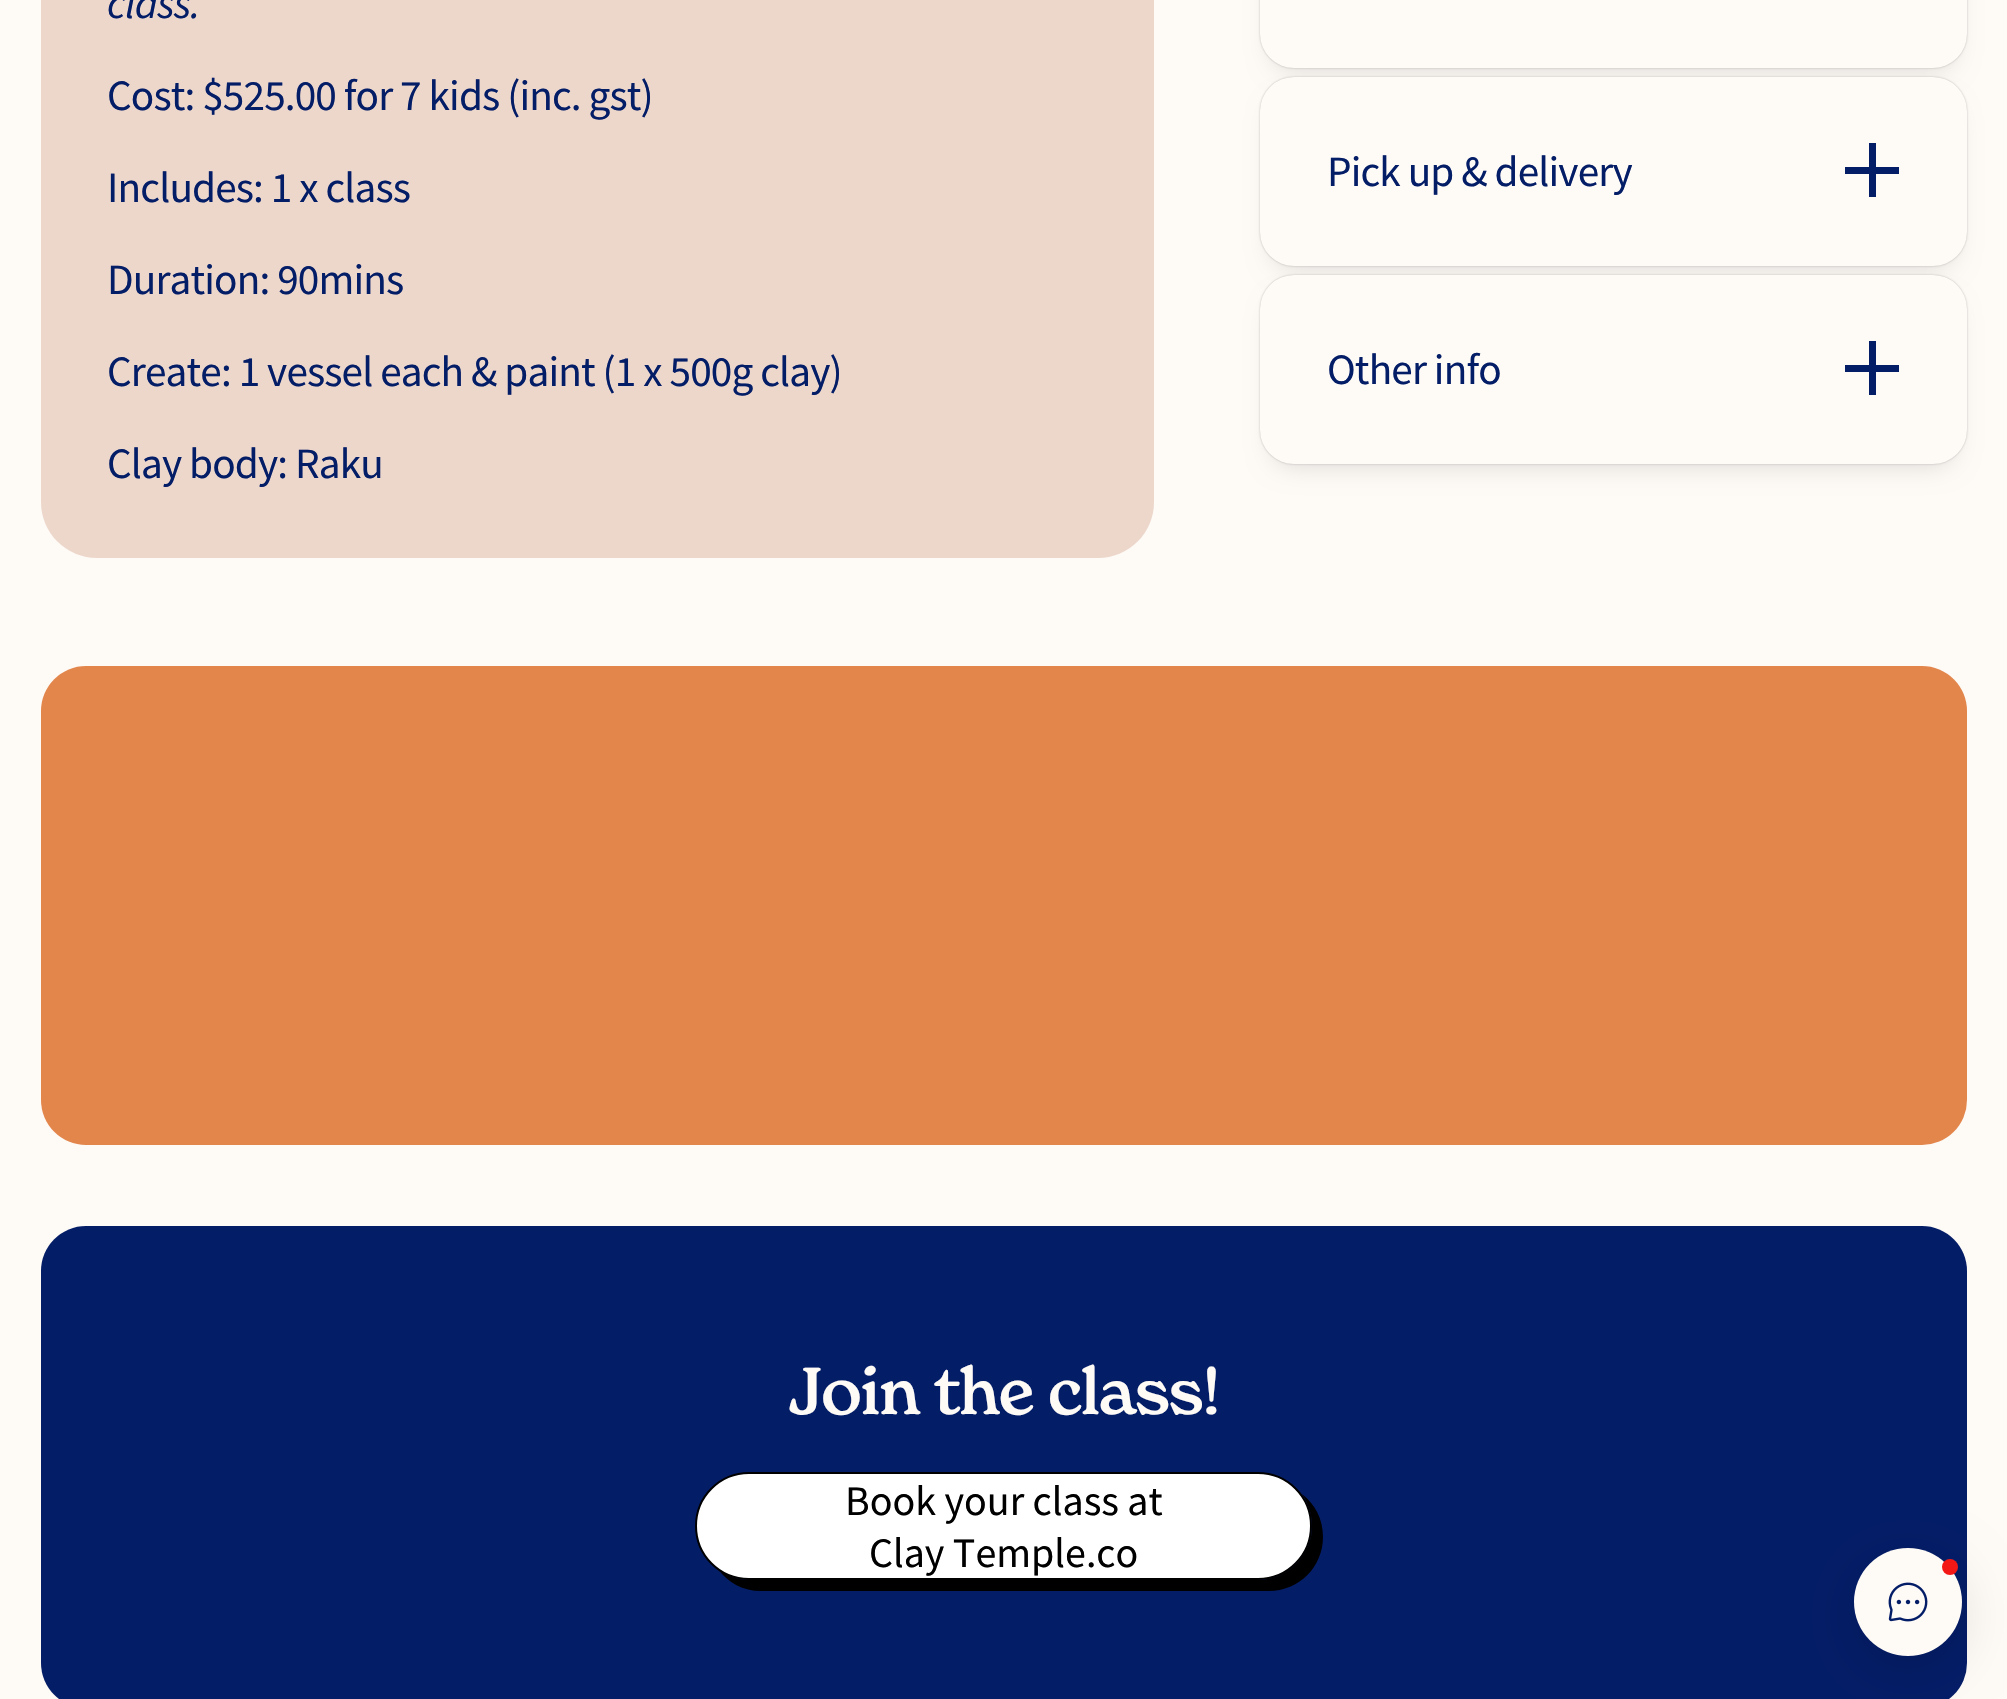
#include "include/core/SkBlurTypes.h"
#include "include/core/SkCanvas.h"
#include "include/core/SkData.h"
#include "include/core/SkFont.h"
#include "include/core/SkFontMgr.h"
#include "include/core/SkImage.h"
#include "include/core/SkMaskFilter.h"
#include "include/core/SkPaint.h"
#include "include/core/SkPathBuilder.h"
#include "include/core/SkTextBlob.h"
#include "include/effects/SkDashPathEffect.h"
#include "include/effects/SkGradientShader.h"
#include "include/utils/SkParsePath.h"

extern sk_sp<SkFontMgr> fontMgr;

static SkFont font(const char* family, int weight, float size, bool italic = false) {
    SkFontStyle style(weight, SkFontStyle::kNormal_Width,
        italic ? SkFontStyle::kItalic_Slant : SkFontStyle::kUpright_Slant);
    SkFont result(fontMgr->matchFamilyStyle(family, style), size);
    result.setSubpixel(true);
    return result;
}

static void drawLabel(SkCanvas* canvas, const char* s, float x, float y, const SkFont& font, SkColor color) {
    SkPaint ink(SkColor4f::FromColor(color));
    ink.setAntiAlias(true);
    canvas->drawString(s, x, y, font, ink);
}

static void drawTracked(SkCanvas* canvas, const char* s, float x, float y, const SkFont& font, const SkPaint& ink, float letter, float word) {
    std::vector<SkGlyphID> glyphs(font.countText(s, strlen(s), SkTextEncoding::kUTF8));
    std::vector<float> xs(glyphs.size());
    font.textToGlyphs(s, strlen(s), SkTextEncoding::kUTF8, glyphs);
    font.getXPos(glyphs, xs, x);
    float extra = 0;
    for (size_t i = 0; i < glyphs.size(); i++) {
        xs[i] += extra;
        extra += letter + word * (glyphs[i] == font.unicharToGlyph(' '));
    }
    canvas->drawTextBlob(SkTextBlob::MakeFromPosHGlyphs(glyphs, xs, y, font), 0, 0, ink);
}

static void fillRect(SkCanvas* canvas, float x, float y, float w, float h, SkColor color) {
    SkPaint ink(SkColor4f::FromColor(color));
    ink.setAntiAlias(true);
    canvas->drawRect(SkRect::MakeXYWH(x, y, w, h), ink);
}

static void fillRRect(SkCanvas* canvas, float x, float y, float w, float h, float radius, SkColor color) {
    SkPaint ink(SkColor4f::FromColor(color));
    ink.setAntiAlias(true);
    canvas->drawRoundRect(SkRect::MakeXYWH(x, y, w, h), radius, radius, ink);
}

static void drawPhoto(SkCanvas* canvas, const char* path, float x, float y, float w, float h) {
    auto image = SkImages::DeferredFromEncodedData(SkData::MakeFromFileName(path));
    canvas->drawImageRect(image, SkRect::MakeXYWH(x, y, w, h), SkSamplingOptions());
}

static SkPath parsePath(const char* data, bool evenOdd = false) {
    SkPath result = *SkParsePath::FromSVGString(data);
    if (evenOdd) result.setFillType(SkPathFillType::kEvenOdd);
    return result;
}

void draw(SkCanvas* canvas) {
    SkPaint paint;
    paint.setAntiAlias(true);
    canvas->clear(0xFFFEFAF6);
    fillRRect(canvas, 41, -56, 1113, 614, 56, 0xFFEDD7CB);
    SkFont font1 = font("Source Sans Pro", 400, 43.25f, true);
    paint.setColor(0xFF041D67);
    drawTracked(canvas, "class.", 107, 18, font1, paint, -0.85f, 0);
    SkFont font2 = font("Source Sans Pro", 400, 43.25f);
    drawTracked(canvas, "Cost: $525.00 for 7 kids (inc. gst)", 107, 110, font2, paint, -0.85f, 0);
    drawTracked(canvas, "Includes: 1 x class", 107, 202, font2, paint, -0.85f, 0);
    drawTracked(canvas, "Duration: 90mins", 107, 294, font2, paint, -0.85f, 0);
    drawTracked(canvas, "Create: 1 vessel each & paint (1 x 500g clay)", 107, 386, font2, paint, -0.85f, 0);
    drawTracked(canvas, "Clay body: Raku", 107, 478, font2, paint, -0.85f, 0);
    paint.setColor(0x40000000);
    paint.setMaskFilter(SkMaskFilter::MakeBlur(kNormal_SkBlurStyle, 1));
    canvas->drawRoundRect(SkRect::MakeXYWH(1260, -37, 707, 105), 34, 34, paint);
    paint.setMaskFilter(nullptr);
    paint.setColor(0x26000000);
    paint.setMaskFilter(SkMaskFilter::MakeBlur(kNormal_SkBlurStyle, 13.5f));
    canvas->drawRoundRect(SkRect::MakeXYWH(1274, -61, 679, 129), 20, 20, paint);
    paint.setMaskFilter(nullptr);
    fillRRect(canvas, 1260, -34, 707, 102, 34, 0xFFFEFAF6);
    paint.setColor(0x40000000);
    paint.setMaskFilter(SkMaskFilter::MakeBlur(kNormal_SkBlurStyle, 1));
    canvas->drawRoundRect(SkRect::MakeXYWH(1260, 77, 707, 189), 34, 34, paint);
    paint.setMaskFilter(nullptr);
    paint.setColor(0x26000000);
    paint.setMaskFilter(SkMaskFilter::MakeBlur(kNormal_SkBlurStyle, 13.5f));
    canvas->drawRoundRect(SkRect::MakeXYWH(1274, 104, 679, 162), 20, 20, paint);
    paint.setMaskFilter(nullptr);
    fillRRect(canvas, 1260, 77, 707, 189, 34, 0xFFFEFAF6);
    paint.setColor(0xFF041D67);
    drawTracked(canvas, "Pick up & delivery", 1327, 186, font2, paint, -0.85f, 0);
    fillRect(canvas, 1845, 167, 54, 7, 0xFF041D67);
    fillRect(canvas, 1869, 143, 7, 54, 0xFF041D67);
    paint.setColor(0x40000000);
    paint.setMaskFilter(SkMaskFilter::MakeBlur(kNormal_SkBlurStyle, 1));
    canvas->drawRoundRect(SkRect::MakeXYWH(1260, 275, 707, 189), 34, 34, paint);
    paint.setMaskFilter(nullptr);
    paint.setColor(0x26000000);
    paint.setMaskFilter(SkMaskFilter::MakeBlur(kNormal_SkBlurStyle, 13.5f));
    canvas->drawRoundRect(SkRect::MakeXYWH(1274, 302, 679, 162), 20, 20, paint);
    paint.setMaskFilter(nullptr);
    fillRRect(canvas, 1260, 275, 707, 189, 34, 0xFFFEFAF6);
    paint.setColor(0xFF041D67);
    drawTracked(canvas, "Other info", 1327, 384, font2, paint, -0.85f, 0);
    fillRect(canvas, 1845, 365, 54, 7, 0xFF041D67);
    fillRect(canvas, 1869, 341, 7, 54, 0xFF041D67);
    fillRRect(canvas, 41, 666, 1926, 479, 45, 0xFFE3864C);
    fillRRect(canvas, 41, 1226, 1926, 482, 45, 0xFF041D67);
    SkFont font3 = font("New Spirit", 500, 65);
    paint.setColor(0xFFFEFAF6);
    drawTracked(canvas, "Join the class!", 789, 1414, font3, paint, -1.25f, 0);
    paint.setColor(0xFF000000);
    canvas->drawPath(parsePath("M718 1569C728 1583 743 1591 761 1591H1269C1299 1591 1323 1567 1323 1537C1323 1519 1315 1504 1302 1494C1308 1503 1312 1514 1312 1526C1312 1555 1288 1580 1258 1580H749C738 1580 727 1576 718 1569Z"), paint);
    paint.setColor(0xFFFFFFFF);
    canvas->drawRoundRect(SkRect::MakeXYWH(696, 1473, 615, 106), 53, 53, paint);
    paint.setStroke(true);
    paint.setStrokeWidth(2);
    paint.setColor(0xFF000000);
    canvas->drawRoundRect(SkRect::MakeXYWH(696, 1473, 615, 106), 53, 53, paint);
    SkFont font4 = font("Source Sans Pro", 400, 42);
    drawLabel(canvas, "Book your class at", 845, 1515, font4, 0xFF000000);
    drawLabel(canvas, "Clay Temple.co", 869, 1567, font4, 0xFF000000);
    paint.setStroke(false);
    paint.setColor(0x1F000000);
    paint.setMaskFilter(SkMaskFilter::MakeBlur(kNormal_SkBlurStyle, 27));
    canvas->drawRoundRect(SkRect::MakeXYWH(1854, 1562, 108, 108), 54, 54, paint);
    paint.setMaskFilter(nullptr);
    paint.setColor(0xFFFEFAF6);
    canvas->drawCircle(1908, 1602, 54, paint);
    paint.setColor(0xFFF31816);
    canvas->drawCircle(1950, 1567, 8, paint);
    drawPhoto(canvas, "assets/img1.png", 1888, 1582, 40, 40);
}
